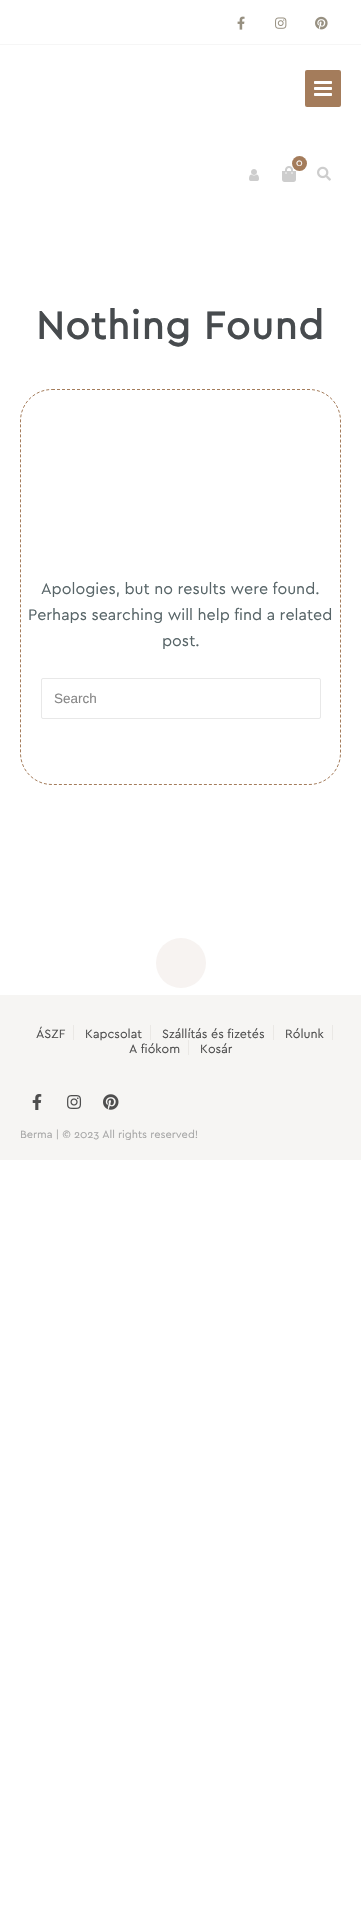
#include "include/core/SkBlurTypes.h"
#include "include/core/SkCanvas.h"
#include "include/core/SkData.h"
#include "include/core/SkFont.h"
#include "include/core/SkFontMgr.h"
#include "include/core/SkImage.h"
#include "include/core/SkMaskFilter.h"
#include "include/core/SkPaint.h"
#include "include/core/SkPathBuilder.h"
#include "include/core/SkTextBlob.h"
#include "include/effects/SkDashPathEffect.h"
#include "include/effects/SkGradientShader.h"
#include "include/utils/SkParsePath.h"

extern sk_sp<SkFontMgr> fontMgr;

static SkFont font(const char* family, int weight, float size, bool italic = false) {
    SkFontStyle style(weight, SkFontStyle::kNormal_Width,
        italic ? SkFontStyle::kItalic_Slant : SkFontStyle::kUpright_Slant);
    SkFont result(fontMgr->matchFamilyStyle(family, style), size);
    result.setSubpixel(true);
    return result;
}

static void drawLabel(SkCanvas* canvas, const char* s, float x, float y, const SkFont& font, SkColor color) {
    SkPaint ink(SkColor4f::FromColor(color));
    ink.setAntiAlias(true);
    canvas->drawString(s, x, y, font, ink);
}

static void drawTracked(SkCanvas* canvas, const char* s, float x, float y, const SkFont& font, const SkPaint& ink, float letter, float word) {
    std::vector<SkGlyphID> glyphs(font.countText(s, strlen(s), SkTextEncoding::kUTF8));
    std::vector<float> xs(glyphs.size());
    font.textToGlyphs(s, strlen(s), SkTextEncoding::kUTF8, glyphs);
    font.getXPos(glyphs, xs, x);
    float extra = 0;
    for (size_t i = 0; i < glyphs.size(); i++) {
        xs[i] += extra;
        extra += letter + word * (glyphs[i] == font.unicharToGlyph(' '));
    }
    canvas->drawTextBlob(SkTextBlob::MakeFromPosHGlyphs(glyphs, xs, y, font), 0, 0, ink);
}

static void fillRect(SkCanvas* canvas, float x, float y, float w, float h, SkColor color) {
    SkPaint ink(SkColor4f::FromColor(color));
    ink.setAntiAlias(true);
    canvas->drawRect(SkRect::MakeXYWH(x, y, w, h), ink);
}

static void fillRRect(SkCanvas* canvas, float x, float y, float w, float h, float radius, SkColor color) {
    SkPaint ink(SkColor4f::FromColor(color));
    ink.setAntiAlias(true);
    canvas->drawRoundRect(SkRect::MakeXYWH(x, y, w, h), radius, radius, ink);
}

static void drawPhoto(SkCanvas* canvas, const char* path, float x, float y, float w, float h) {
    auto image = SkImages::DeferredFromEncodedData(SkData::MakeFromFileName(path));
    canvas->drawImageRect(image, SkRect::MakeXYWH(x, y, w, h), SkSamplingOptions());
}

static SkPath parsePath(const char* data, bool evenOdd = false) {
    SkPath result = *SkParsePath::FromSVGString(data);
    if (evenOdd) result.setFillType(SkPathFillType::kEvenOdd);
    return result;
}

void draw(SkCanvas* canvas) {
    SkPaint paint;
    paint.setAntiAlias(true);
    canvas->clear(0xFFFFFFFF);
    fillRect(canvas, 0, 44, 361, 1, 0xFFF6F6F6);
    drawPhoto(canvas, "assets/img1.png", 237, 16, 8, 14);
    drawPhoto(canvas, "assets/img2.png", 275, 17, 12, 12);
    drawPhoto(canvas, "assets/img3.png", 315, 16, 13, 14);
    fillRRect(canvas, 305, 70, 36, 37, 2, 0xFFA47C5B);
    drawPhoto(canvas, "assets/img4.png", 314, 81, 18, 15);
    drawPhoto(canvas, "assets/img5.png", 282, 166, 14, 16);
    paint.setColor(0xFFA47C5B);
    canvas->drawCircle(299.5f, 163.5f, 7.5f, paint);
    SkFont font1 = font("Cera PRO", 400, 10);
    drawLabel(canvas, "0", 296, 166, font1, 0xFFFFFFFF);
    drawPhoto(canvas, "assets/img6.png", 249, 169, 10, 12);
    drawPhoto(canvas, "assets/img7.png", 317, 166, 14, 15);
    SkFont font2 = font("Cera PRO", 700, 40);
    paint.setColor(0xFF474B4E);
    drawTracked(canvas, "Nothing Found", 36, 339, font2, paint, 1, 0);
    paint.setStroke(true);
    paint.setStrokeWidth(1);
    paint.setColor(0xFFA47C5B);
    paint.setPathEffect(SkDashPathEffect::Make({{3, 2}}, 0));
    canvas->drawPath(parsePath("M52 389.5H309C326.5 389.5 340.5 403.5 340.5 421V753C340.5 770.5 326.5 784.5 309 784.5H52C34.5 784.5 20.5 770.5 20.5 753V421C20.5 403.5 34.5 389.5 52 389.5Z"), paint);
    paint.setPathEffect(nullptr);
    SkFont font3 = font("Cera PRO", 400, 16);
    drawLabel(canvas, "Apologies, but no results were found.", 41, 594, font3, 0xFF586568);
    drawLabel(canvas, "Perhaps searching will help find a related", 28, 620, font3, 0xFF586568);
    drawLabel(canvas, "post.", 162, 646, font3, 0xFF586568);
    paint.setColor(0xFFE8E8E8);
    canvas->drawRoundRect(SkRect::MakeXYWH(41.5f, 678.5f, 279, 40), 1.5f, 1.5f, paint);
    SkFont font4 = font("Liberation Sans", 400, 13.5f);
    drawLabel(canvas, "Search", 54, 703, font4, 0xFF878787);
    fillRect(canvas, 0, 995, 361, 165, 0xFFF6F5F3);
    fillRect(canvas, 73, 1025, 1, 15, 0xFFEAE8E5);
    SkFont font5 = font("Cera PRO", 400, 12.5f);
    drawLabel(canvas, "ÁSZF", 36, 1038, font5, 0xFF4E4E4E);
    fillRect(canvas, 150, 1025, 1, 15, 0xFFEAE8E5);
    drawLabel(canvas, "Kapcsolat", 85, 1038, font5, 0xFF4E4E4E);
    fillRect(canvas, 273, 1025, 1, 15, 0xFFEAE8E5);
    drawLabel(canvas, "Szállítás és fizetés", 162, 1038, font5, 0xFF4E4E4E);
    fillRect(canvas, 332, 1025, 1, 15, 0xFFEAE8E5);
    drawLabel(canvas, "Rólunk", 285, 1038, font5, 0xFF4E4E4E);
    fillRect(canvas, 188, 1040, 1, 15, 0xFFEAE8E5);
    drawLabel(canvas, "A fiókom", 129, 1053, font5, 0xFF4E4E4E);
    drawLabel(canvas, "Kosár", 200, 1053, font5, 0xFF4E4E4E);
    drawPhoto(canvas, "assets/img8.png", 32, 1094, 10, 16);
    drawPhoto(canvas, "assets/img9.png", 67, 1095, 15, 14);
    drawPhoto(canvas, "assets/img10.png", 103, 1094, 16, 16);
    SkFont font6 = font("Cera PRO", 400, 11);
    drawLabel(canvas, "Berma | © 2023 All rights reserved!", 20, 1138, font6, 0xFFA6A6A6);
    paint.setStroke(false);
    paint.setColor(0xFFF7F3F1);
    canvas->drawCircle(181, 963, 25, paint);
}
